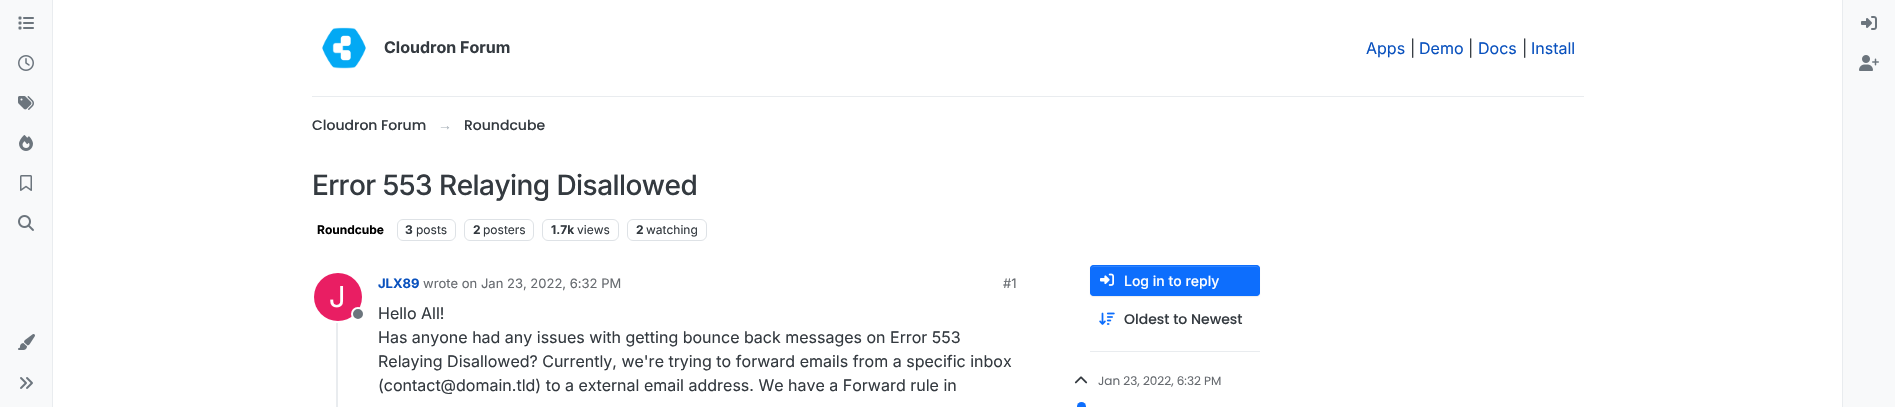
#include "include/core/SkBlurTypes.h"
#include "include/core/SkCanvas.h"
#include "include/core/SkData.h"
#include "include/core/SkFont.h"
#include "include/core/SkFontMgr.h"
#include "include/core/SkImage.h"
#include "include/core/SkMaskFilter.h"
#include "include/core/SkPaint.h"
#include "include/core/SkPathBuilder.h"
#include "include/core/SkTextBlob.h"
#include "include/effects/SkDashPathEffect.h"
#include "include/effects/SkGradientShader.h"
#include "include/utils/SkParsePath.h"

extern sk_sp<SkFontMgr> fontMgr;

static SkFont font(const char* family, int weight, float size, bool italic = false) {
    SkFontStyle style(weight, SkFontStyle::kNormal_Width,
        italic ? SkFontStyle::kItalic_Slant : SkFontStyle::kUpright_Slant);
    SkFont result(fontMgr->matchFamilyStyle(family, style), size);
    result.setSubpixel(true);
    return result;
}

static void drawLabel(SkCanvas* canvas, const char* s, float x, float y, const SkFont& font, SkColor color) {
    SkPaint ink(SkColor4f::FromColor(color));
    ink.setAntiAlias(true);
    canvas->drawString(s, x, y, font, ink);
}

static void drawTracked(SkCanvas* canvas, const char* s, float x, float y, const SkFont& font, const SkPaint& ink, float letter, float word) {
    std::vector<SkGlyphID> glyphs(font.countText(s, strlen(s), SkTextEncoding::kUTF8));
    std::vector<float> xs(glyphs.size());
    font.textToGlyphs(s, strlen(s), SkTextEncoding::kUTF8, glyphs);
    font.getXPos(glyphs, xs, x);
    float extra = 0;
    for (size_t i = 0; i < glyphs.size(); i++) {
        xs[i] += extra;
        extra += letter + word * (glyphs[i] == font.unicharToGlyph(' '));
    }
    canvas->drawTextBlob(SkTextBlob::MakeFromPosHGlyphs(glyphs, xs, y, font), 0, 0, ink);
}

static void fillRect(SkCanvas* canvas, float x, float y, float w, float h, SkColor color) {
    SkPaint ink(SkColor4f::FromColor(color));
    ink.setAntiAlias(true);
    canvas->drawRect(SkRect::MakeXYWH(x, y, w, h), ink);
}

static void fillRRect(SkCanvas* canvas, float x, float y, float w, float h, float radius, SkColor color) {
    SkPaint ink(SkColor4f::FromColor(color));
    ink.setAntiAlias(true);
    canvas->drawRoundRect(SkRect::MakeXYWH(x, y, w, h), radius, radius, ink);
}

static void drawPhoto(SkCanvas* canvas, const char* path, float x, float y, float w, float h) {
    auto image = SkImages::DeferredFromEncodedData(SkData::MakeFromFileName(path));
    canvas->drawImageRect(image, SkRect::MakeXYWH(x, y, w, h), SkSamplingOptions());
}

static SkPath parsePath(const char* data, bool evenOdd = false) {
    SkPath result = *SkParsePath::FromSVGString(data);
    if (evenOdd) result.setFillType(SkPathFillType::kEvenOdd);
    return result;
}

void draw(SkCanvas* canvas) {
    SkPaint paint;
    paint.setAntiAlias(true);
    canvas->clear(0xFFFFFFFF);
    fillRect(canvas, 0, 0, 52, 407, 0xFFF8F9FA);
    fillRect(canvas, 52, 0, 1, 407, 0xFFE9ECEF);
    drawPhoto(canvas, "assets/img1.png", 18, 16, 16, 14);
    drawPhoto(canvas, "assets/img2.png", 18, 55, 16, 16);
    drawPhoto(canvas, "assets/img3.png", 18, 96, 16, 14);
    drawPhoto(canvas, "assets/img4.png", 19, 135, 14, 16);
    drawPhoto(canvas, "assets/img5.png", 20, 175, 12, 16);
    drawPhoto(canvas, "assets/img6.png", 18, 215, 16, 16);
    drawPhoto(canvas, "assets/img7.png", 18, 334, 17, 16);
    drawPhoto(canvas, "assets/img8.png", 20, 377, 13, 12);
    fillRect(canvas, 312, 96, 1272, 1, 0xFFE9ECEF);
    drawPhoto(canvas, "assets/img9.png", 322, 27, 44, 42);
    SkFont font1 = font("Inter", 700, 16);
    drawLabel(canvas, "Cloudron Forum", 384, 53, font1, 0xFF343A40);
    SkFont font2 = font("Inter", 400, 16);
    drawLabel(canvas, "Apps", 1366, 54, font2, 0xFF0951BE);
    drawLabel(canvas, "|", 1410, 54, font2, 0xFF343A40);
    drawLabel(canvas, "Demo", 1419, 54, font2, 0xFF0951BE);
    drawLabel(canvas, "|", 1468, 54, font2, 0xFF343A40);
    drawLabel(canvas, "Docs", 1478, 54, font2, 0xFF0951BE);
    drawLabel(canvas, "|", 1522, 54, font2, 0xFF343A40);
    drawLabel(canvas, "Install", 1531, 54, font2, 0xFF0951BE);
    SkFont font3 = font("Poppins", 500, 14);
    drawLabel(canvas, "Cloudron Forum", 312, 130, font3, 0xFF343A40);
    SkFont font4 = font("Liberation Sans", 400, 14);
    drawLabel(canvas, "→", 438, 130, font4, 0xFFADB5BD);
    drawLabel(canvas, "Roundcube", 464, 130, font3, 0xFF343A40);
    SkFont font5 = font("Inter", 500, 28);
    paint.setColor(0xFF343A40);
    drawTracked(canvas, "Error 553 Relaying Disallowed", 312, 195, font5, paint, -0.55f, 0);
    SkFont font6 = font("Inter", 700, 12);
    drawLabel(canvas, "Roundcube", 317, 234, font6, 0xFF000000);
    paint.setStroke(true);
    paint.setStrokeWidth(1);
    paint.setColor(0xFFDEE2E6);
    canvas->drawRoundRect(SkRect::MakeXYWH(397.5f, 219.5f, 58, 21), 5.5f, 5.5f, paint);
    drawLabel(canvas, "3", 405, 234, font6, 0xFF343A40);
    SkFont font7 = font("Inter", 400, 12);
    drawLabel(canvas, "posts", 416, 234, font7, 0xFF343A40);
    canvas->drawRoundRect(SkRect::MakeXYWH(464.5f, 219.5f, 69, 21), 5.5f, 5.5f, paint);
    drawLabel(canvas, "2", 473, 234, font6, 0xFF343A40);
    drawLabel(canvas, "posters", 483, 234, font7, 0xFF343A40);
    canvas->drawRoundRect(SkRect::MakeXYWH(542.5f, 219.5f, 76, 21), 5.5f, 5.5f, paint);
    drawLabel(canvas, "1.7k", 551, 234, font6, 0xFF343A40);
    drawLabel(canvas, "views", 577, 234, font7, 0xFF343A40);
    canvas->drawRoundRect(SkRect::MakeXYWH(627.5f, 219.5f, 79, 21), 5.5f, 5.5f, paint);
    drawLabel(canvas, "2", 636, 234, font6, 0xFF343A40);
    drawLabel(canvas, "watching", 646, 234, font7, 0xFF343A40);
    fillRect(canvas, 336, 273, 2, 134, 0xFFE9ECEF);
    paint.setStrokeWidth(2);
    paint.setColor(0xFFFFFFFF);
    canvas->drawCircle(338, 297, 25, paint);
    paint.setStroke(false);
    paint.setColor(0xFFE91E63);
    canvas->drawCircle(338, 297, 24, paint);
    SkFont font8 = font("Inter", 400, 29);
    drawLabel(canvas, "J", 329, 307, font8, 0xFFFFFFFF);
    paint.setColor(0xFF6C757D);
    canvas->drawCircle(358, 314, 6, paint);
    paint.setStroke(true);
    paint.setColor(0xFFFFFFFF);
    canvas->drawCircle(358, 314, 6, paint);
    SkFont font9 = font("Inter", 700, 13);
    drawLabel(canvas, "JLX89", 378, 288, font9, 0xFF0951BE);
    SkFont font10 = font("Inter", 400, 13);
    drawLabel(canvas, "wrote on Jan 23, 2022, 6:32 PM", 423, 288, font10, 0xFF676B70);
    drawLabel(canvas, "#1", 1003, 288, font10, 0xFF676B70);
    drawLabel(canvas, "Hello All!", 378, 319, font2, 0xFF343A40);
    drawLabel(canvas, "Has anyone had any issues with getting bounce back messages on Error 553", 378, 343, font2, 0xFF343A40);
    drawLabel(canvas, "Relaying Disallowed? Currently, we're trying to forward emails from a specific inbox", 378, 367, font2, 0xFF343A40);
    drawLabel(canvas, "(contact@domain.tld) to a external email address. We have a Forward rule in", 378, 391, font2, 0xFF343A40);
    paint.setStroke(false);
    paint.setColor(0x12000000);
    paint.setMaskFilter(SkMaskFilter::MakeBlur(kNormal_SkBlurStyle, 0.5f));
    canvas->drawRoundRect(SkRect::MakeXYWH(1090, 266, 170, 31), 4, 4, paint);
    paint.setMaskFilter(nullptr);
    fillRRect(canvas, 1090, 265, 170, 31, 4, 0xFF0D6EFD);
    paint.setColor(0xFF3184FD);
    canvas->drawPath(parsePath("M1094 267H1256C1258 267 1259 268 1259 270V269C1259 267 1258 266 1256 266H1094C1092 266 1091 267 1091 269V270C1091 268 1092 267 1094 267Z"), paint);
    paint.setStroke(true);
    paint.setStrokeWidth(1);
    paint.setColor(0xFF0D6EFD);
    canvas->drawRoundRect(SkRect::MakeXYWH(1090.5f, 265.5f, 169, 30), 3.5f, 3.5f, paint);
    drawPhoto(canvas, "assets/img10.png", 1100, 273, 14, 13);
    SkFont font11 = font("Inter", 500, 14);
    drawLabel(canvas, "Log in to reply", 1124, 286, font11, 0xFFFFFFFF);
    drawPhoto(canvas, "assets/img11.png", 1099, 312, 16, 13);
    drawLabel(canvas, "Oldest to Newest", 1124, 324, font3, 0xFF343A40);
    fillRect(canvas, 1090, 351, 170, 1, 0xFFE9ECEF);
    drawPhoto(canvas, "assets/img12.png", 1074, 376, 14, 8);
    SkFont font12 = font("Poppins", 400, 12);
    drawLabel(canvas, "Jan 23, 2022, 6:32 PM", 1098, 385, font12, 0xFF676B70);
    fillRRect(canvas, 1077, 402, 9, 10, 4.5f, 0xFF0D6EFD);
    fillRect(canvas, 1843, 0, 52, 407, 0xFFF8F9FA);
    fillRect(canvas, 1842, 0, 1, 407, 0xFFE9ECEF);
    drawPhoto(canvas, "assets/img13.png", 1861, 16, 16, 14);
    drawPhoto(canvas, "assets/img14.png", 1859, 55, 20, 16);
}
